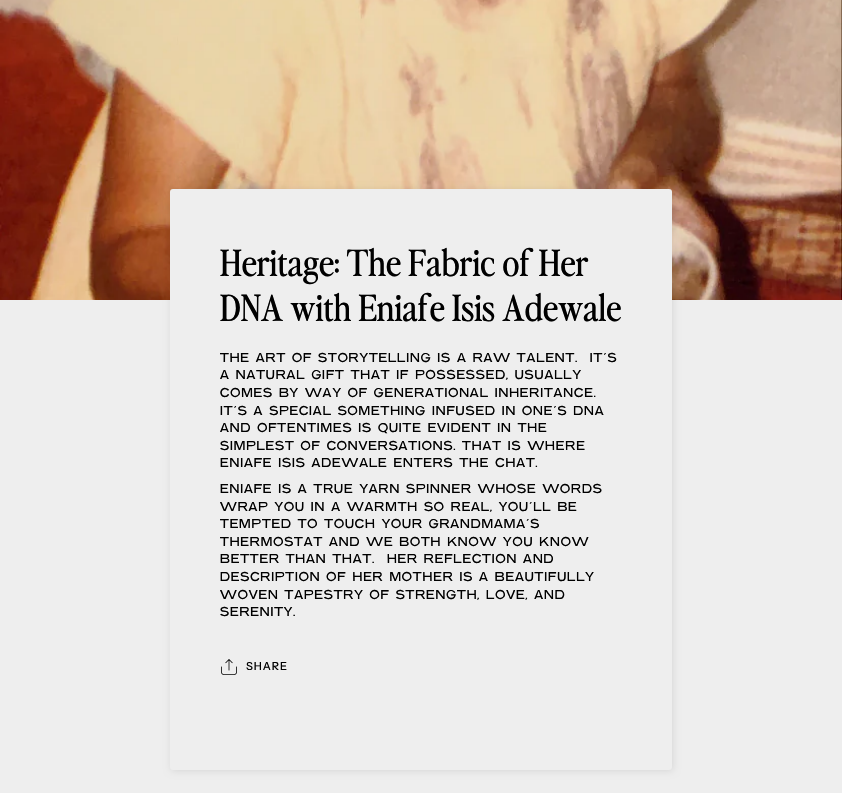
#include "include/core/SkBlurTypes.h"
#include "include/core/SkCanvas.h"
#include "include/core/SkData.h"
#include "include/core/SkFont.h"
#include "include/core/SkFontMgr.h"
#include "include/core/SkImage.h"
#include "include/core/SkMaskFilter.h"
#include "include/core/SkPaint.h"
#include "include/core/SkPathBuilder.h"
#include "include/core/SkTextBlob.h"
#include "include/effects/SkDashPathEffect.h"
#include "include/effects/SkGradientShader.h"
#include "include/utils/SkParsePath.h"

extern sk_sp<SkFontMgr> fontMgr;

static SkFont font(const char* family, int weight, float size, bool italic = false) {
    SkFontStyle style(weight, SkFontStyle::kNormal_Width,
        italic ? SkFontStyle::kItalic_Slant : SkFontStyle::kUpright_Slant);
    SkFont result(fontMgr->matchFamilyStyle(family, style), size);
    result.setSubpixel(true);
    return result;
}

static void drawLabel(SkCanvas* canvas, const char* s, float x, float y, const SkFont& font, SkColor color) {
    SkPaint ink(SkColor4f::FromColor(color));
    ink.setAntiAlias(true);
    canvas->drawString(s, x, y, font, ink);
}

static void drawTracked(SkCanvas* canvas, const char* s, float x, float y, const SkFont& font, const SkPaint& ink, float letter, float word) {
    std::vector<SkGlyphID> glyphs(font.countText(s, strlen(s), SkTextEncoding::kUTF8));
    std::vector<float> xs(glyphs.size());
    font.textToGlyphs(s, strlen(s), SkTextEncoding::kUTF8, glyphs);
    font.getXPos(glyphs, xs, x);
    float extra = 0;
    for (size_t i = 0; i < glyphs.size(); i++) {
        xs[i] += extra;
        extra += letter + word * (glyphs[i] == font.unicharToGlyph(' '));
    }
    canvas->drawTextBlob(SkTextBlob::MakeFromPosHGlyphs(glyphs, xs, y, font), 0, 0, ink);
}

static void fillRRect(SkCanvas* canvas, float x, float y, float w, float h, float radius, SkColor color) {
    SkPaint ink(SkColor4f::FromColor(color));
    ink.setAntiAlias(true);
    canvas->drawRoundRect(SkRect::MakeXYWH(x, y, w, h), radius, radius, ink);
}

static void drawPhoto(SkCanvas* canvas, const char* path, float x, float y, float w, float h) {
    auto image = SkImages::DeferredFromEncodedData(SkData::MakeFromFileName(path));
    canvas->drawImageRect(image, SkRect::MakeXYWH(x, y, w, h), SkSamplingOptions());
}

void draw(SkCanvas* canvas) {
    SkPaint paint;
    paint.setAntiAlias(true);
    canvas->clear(0xFFEEEEEE);
    drawPhoto(canvas, "assets/img1.png", 0, 0, 842, 300);
    paint.setColor(0x1A000000);
    paint.setMaskFilter(SkMaskFilter::MakeBlur(kNormal_SkBlurStyle, 3.5f));
    canvas->drawRoundRect(SkRect::MakeXYWH(171, 190, 502, 581), 3, 3, paint);
    paint.setMaskFilter(nullptr);
    fillRRect(canvas, 170, 189, 502, 581, 3, 0xFFEEEEEE);
    SkFont font1 = font("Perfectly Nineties", 400, 36.25f);
    drawLabel(canvas, "Heritage: The Fabric of Her", 220, 276, font1, 0xFF000000);
    drawLabel(canvas, "DNA with Eniafe Isis Adewale", 220, 321, font1, 0xFF000000);
    SkFont font2 = font("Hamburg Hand", 300, 12.8f);
    paint.setColor(0xFF000000);
    drawTracked(canvas, "THE ART OF STORYTELLING IS A RAW TALENT.  IT'S", 220, 362, font2, paint, 0.95f, 0);
    drawTracked(canvas, "A NATURAL GIFT THAT IF POSSESSED, USUALLY", 220, 379, font2, paint, 0.95f, 0);
    drawTracked(canvas, "COMES BY WAY OF GENERATIONAL INHERITANCE.", 220, 397, font2, paint, 0.95f, 0);
    drawTracked(canvas, "IT'S A SPECIAL SOMETHING INFUSED IN ONE'S DNA", 220, 415, font2, paint, 0.95f, 0);
    drawTracked(canvas, "AND OFTENTIMES IS QUITE EVIDENT IN THE", 220, 432, font2, paint, 0.95f, 0);
    drawTracked(canvas, "SIMPLEST OF CONVERSATIONS. THAT IS WHERE", 220, 450, font2, paint, 0.95f, 0);
    drawTracked(canvas, "ENIAFE ISIS ADEWALE ENTERS THE CHAT.", 220, 467, font2, paint, 0.95f, 0);
    drawTracked(canvas, "ENIAFE IS A TRUE YARN SPINNER WHOSE WORDS", 220, 493, font2, paint, 0.95f, 0);
    drawTracked(canvas, "WRAP YOU IN A WARMTH SO REAL, YOU'LL BE", 220, 511, font2, paint, 0.95f, 0);
    drawTracked(canvas, "TEMPTED TO TOUCH YOUR GRANDMAMA'S", 220, 528, font2, paint, 0.95f, 0);
    drawTracked(canvas, "THERMOSTAT AND WE BOTH KNOW YOU KNOW", 220, 546, font2, paint, 0.95f, 0);
    drawTracked(canvas, "BETTER THAN THAT.  HER REFLECTION AND", 220, 563, font2, paint, 0.95f, 0);
    drawTracked(canvas, "DESCRIPTION OF HER MOTHER IS A BEAUTIFULLY", 220, 581, font2, paint, 0.95f, 0);
    drawTracked(canvas, "WOVEN TAPESTRY OF STRENGTH, LOVE, AND", 220, 599, font2, paint, 0.95f, 0);
    drawTracked(canvas, "SERENITY.", 220, 616, font2, paint, 0.95f, 0);
    drawPhoto(canvas, "assets/img2.png", 221, 659, 16, 16);
    SkFont font3 = font("Instrument Sans", 500, 11);
    drawTracked(canvas, "SHARE", 246, 670, font3, paint, 0.95f, 0);
}
